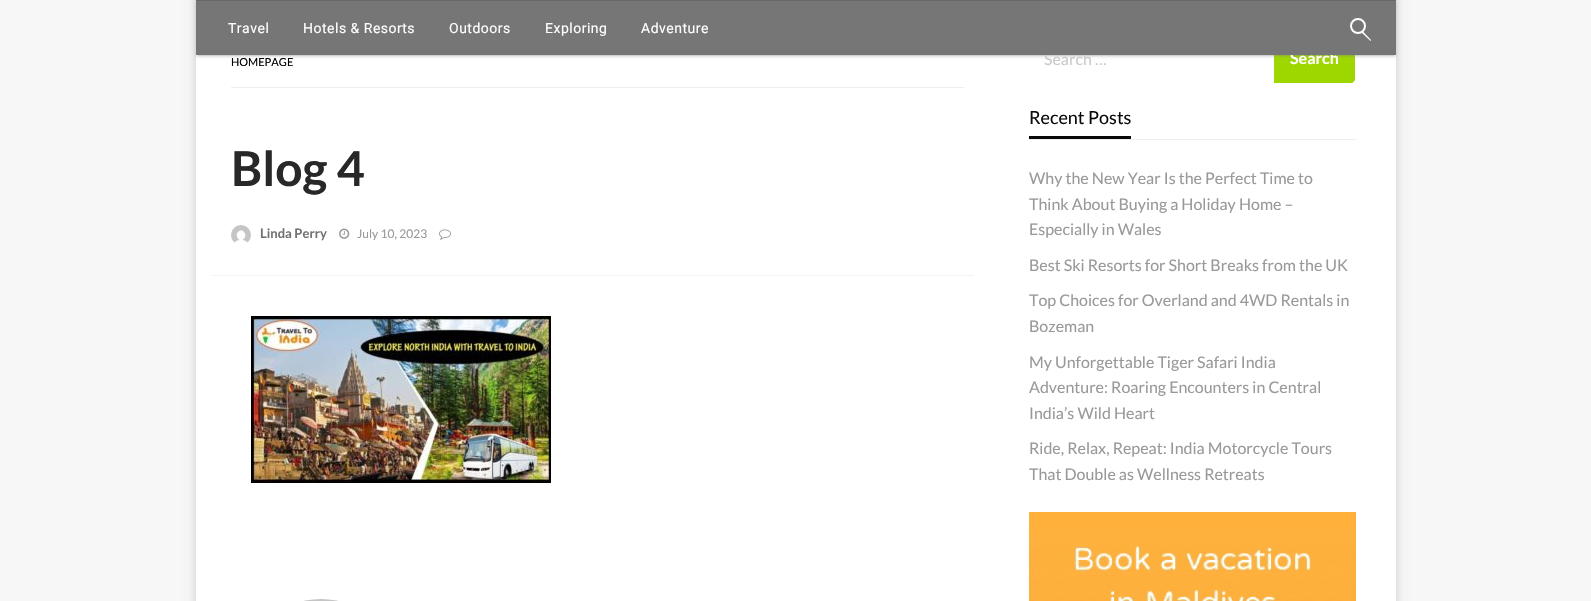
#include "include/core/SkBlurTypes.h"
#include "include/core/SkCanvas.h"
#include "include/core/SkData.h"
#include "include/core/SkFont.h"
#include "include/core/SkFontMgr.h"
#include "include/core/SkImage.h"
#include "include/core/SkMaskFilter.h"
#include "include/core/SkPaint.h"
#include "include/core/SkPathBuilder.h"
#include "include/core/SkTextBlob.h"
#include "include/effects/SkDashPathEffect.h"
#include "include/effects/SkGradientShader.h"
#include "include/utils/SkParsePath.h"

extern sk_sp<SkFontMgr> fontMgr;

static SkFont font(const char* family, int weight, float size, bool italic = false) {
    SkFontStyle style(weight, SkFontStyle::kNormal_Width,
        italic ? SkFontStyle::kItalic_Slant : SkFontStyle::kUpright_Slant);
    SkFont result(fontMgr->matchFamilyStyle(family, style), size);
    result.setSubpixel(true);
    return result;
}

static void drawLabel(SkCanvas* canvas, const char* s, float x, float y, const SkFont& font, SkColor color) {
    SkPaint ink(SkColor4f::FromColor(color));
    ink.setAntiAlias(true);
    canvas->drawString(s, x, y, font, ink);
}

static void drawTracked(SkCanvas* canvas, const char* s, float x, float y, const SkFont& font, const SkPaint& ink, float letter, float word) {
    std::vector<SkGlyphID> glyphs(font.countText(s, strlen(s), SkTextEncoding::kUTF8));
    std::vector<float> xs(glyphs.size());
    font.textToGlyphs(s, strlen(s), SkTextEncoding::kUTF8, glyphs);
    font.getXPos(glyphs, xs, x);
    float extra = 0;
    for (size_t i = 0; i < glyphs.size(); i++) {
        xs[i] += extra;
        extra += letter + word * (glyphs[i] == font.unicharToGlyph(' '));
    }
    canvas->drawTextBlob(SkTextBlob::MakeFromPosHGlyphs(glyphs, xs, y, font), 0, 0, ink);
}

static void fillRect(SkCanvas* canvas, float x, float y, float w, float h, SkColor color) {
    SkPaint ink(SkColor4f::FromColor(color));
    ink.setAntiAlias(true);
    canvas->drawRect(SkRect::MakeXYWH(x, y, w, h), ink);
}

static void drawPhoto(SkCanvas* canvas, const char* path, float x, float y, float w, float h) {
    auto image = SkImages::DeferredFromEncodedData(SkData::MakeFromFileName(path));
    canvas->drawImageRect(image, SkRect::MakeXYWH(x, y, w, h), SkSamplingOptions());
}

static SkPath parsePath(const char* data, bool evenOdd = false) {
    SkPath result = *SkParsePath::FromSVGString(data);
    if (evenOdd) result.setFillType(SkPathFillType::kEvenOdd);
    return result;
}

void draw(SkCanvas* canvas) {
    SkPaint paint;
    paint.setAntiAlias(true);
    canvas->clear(0xFFF7F7F7);
    paint.setColor(0x17000000);
    paint.setMaskFilter(SkMaskFilter::MakeBlur(kNormal_SkBlurStyle, 5));
    canvas->drawRect(SkRect::MakeXYWH(196, -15, 1200, 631), paint);
    paint.setMaskFilter(nullptr);
    paint.setColor(0x1A000000);
    paint.setMaskFilter(SkMaskFilter::MakeBlur(kNormal_SkBlurStyle, 4));
    canvas->drawRect(SkRect::MakeXYWH(196, -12, 1200, 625), paint);
    paint.setMaskFilter(nullptr);
    fillRect(canvas, 196, 55, 1200, 546, 0xFFFFFFFF);
    paint.setColor(0xFF9ED700);
    canvas->drawPath(parsePath("M1274 33H1351C1353 33 1355 35 1355 37V79C1355 81 1353 83 1351 83H1274Z"), paint);
    paint.setColor(0x1F767676);
    paint.setMaskFilter(SkMaskFilter::MakeBlur(kNormal_SkBlurStyle, 2.5f));
    canvas->drawRect(SkRect::MakeXYWH(196, 1, 1200, 55), paint);
    paint.setMaskFilter(nullptr);
    paint.setColor(0x33767676);
    paint.setMaskFilter(SkMaskFilter::MakeBlur(kNormal_SkBlurStyle, 0.5f));
    canvas->drawRect(SkRect::MakeXYWH(198, 5, 1196, 51), paint);
    paint.setMaskFilter(nullptr);
    paint.setColor(0x24767676);
    paint.setMaskFilter(SkMaskFilter::MakeBlur(kNormal_SkBlurStyle, 1));
    canvas->drawRect(SkRect::MakeXYWH(196, 2, 1200, 55), paint);
    paint.setMaskFilter(nullptr);
    SkFont font1 = font("Lato", 400, 16);
    drawLabel(canvas, "Search …", 1044, 65, font1, 0xFFCACACA);
    SkFont font2 = font("Lato", 700, 16);
    drawLabel(canvas, "Search", 1290, 64, font2, 0xFFFFFFFF);
    fillRect(canvas, 196, 1, 1200, 54, 0xFF767676);
    fillRect(canvas, 196, 0, 1200, 1, 0xFF686868);
    SkFont font3 = font("Roboto", 400, 14);
    paint.setColor(0xFFFFFFFF);
    drawTracked(canvas, "Travel", 228, 33, font3, paint, 0.5f, 0);
    drawTracked(canvas, "Hotels & Resorts", 303, 33, font3, paint, 0.5f, 0);
    drawTracked(canvas, "Outdoors", 449, 33, font3, paint, 0.5f, 0);
    drawTracked(canvas, "Exploring", 545, 33, font3, paint, 0.5f, 0);
    drawTracked(canvas, "Adventure", 641, 33, font3, paint, 0.5f, 0);
    paint.setStroke(true);
    paint.setStrokeWidth(2);
    canvas->drawCircle(1358, 26, 7, paint);
    paint.setStroke(false);
    canvas->drawPath(parsePath("M1363 31.5L1371 40C1371.5 40.5 1370.5 41 1370 40.5L1361.5 32.5C1361 32 1362 30.5 1363 31.5Z"), paint);
    fillRect(canvas, 211, 275, 763, 1, 0xFFF4F4F4);
    fillRect(canvas, 231, 87, 733, 1, 0xFFEFEFEF);
    SkFont font4 = font("Lato", 400, 11);
    drawLabel(canvas, "HOMEPAGE", 231, 66, font4, 0xFF000000);
    SkFont font5 = font("Lato", 700, 48);
    drawLabel(canvas, "Blog 4", 231, 186, font5, 0xFF282828);
    drawPhoto(canvas, "assets/img1.png", 231, 225, 20, 18);
    SkFont font6 = font("Lato", 700, 13);
    drawLabel(canvas, "Linda Perry", 260, 238, font6, 0xFF737272);
    drawPhoto(canvas, "assets/img2.png", 339, 228, 11, 11);
    SkFont font7 = font("Lato", 400, 12);
    drawLabel(canvas, "July 10, 2023", 357, 238, font7, 0xFF999999);
    drawPhoto(canvas, "assets/img3.png", 439, 229, 12, 11);
    drawPhoto(canvas, "assets/img4.png", 251, 316, 300, 167);
    drawPhoto(canvas, "assets/img5.png", 304, 599, 34, 2);
    fillRect(canvas, 1029, 139, 327, 1, 0xFFEFEFEF);
    fillRect(canvas, 1029, 136, 102, 3, 0xFF0A0A0A);
    SkFont font8 = font("Lato", 400, 18);
    drawLabel(canvas, "Recent Posts", 1029, 124, font8, 0xFF0A0A0A);
    drawLabel(canvas, "Why the New Year Is the Perfect Time to", 1029, 184, font1, 0xFF999999);
    drawLabel(canvas, "Think About Buying a Holiday Home –", 1029, 210, font1, 0xFF999999);
    drawLabel(canvas, "Especially in Wales", 1029, 235, font1, 0xFF999999);
    drawLabel(canvas, "Best Ski Resorts for Short Breaks from the UK", 1029, 271, font1, 0xFF999999);
    drawLabel(canvas, "Top Choices for Overland and 4WD Rentals in", 1029, 306, font1, 0xFF999999);
    drawLabel(canvas, "Bozeman", 1029, 332, font1, 0xFF999999);
    drawLabel(canvas, "My Unforgettable Tiger Safari India", 1029, 368, font1, 0xFF999999);
    drawLabel(canvas, "Adventure: Roaring Encounters in Central", 1029, 393, font1, 0xFF999999);
    drawLabel(canvas, "India’s Wild Heart", 1029, 419, font1, 0xFF999999);
    drawLabel(canvas, "Ride, Relax, Repeat: India Motorcycle Tours", 1029, 454, font1, 0xFF999999);
    drawLabel(canvas, "That Double as Wellness Retreats", 1029, 480, font1, 0xFF999999);
    drawPhoto(canvas, "assets/img6.png", 1029, 512, 327, 89);
}
